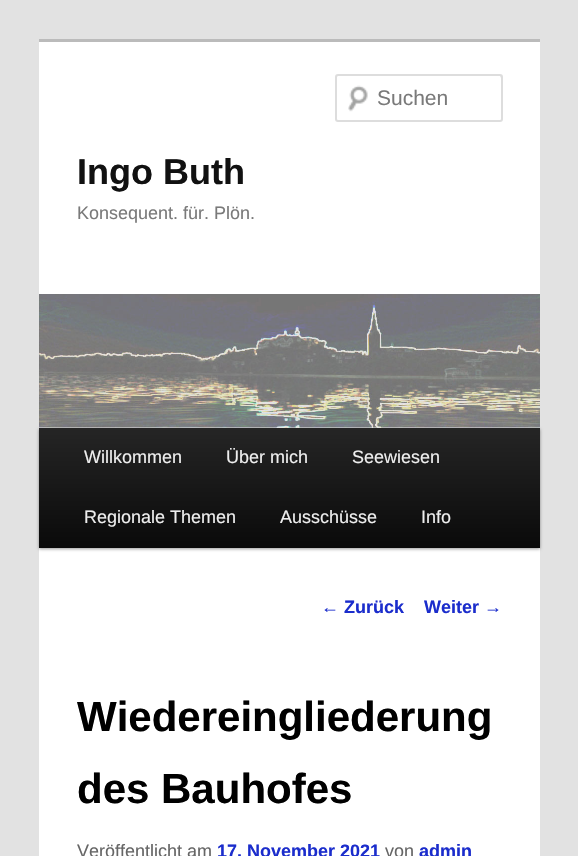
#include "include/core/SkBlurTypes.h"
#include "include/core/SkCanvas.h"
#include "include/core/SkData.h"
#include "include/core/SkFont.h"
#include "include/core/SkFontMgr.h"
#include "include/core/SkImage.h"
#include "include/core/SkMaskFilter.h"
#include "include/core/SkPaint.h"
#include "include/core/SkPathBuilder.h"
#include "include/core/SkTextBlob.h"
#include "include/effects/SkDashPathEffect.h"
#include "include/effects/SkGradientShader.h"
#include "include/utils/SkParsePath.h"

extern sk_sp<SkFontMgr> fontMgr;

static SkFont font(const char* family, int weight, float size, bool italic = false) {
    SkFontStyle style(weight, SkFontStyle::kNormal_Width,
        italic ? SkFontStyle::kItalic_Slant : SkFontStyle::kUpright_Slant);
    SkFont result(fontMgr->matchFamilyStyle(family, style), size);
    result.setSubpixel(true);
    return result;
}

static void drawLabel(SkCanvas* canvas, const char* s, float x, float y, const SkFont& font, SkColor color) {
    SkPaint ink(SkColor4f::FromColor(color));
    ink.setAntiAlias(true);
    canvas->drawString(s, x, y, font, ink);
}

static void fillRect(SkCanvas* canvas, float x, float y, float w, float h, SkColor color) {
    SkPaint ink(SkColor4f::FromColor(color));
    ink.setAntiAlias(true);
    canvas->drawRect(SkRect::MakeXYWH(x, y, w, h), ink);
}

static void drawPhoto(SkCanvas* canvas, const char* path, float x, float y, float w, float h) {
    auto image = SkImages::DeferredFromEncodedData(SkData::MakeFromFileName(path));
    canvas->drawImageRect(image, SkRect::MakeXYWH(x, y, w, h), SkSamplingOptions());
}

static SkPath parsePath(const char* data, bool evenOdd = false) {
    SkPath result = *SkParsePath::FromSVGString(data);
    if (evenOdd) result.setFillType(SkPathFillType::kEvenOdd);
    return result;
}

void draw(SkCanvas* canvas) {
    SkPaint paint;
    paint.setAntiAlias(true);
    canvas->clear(0xFFE2E2E2);
    fillRect(canvas, 39, 42, 501, 814, 0xFFFFFFFF);
    fillRect(canvas, 39, 39, 501, 3, 0xFFBBBBBB);
    drawPhoto(canvas, "assets/img1.png", 348, 85, 20, 27);
    paint.setColor(0xFFE6E6E6);
    canvas->drawPath(parsePath("M338 76H500L501 78V76C501 76 500 75 500 75H338C337 75 336 76 336 76V78C336 77 337 76 338 76Z"), paint);
    paint.setStroke(true);
    paint.setStrokeWidth(2);
    paint.setColor(0xFFDDDDDD);
    canvas->drawRoundRect(SkRect::MakeXYWH(336, 75, 166, 46), 2, 2, paint);
    SkFont font1 = font("Liberation Sans", 400, 21);
    drawLabel(canvas, "Suchen", 377, 105, font1, 0xFF7A7A7A);
    SkFont font2 = font("Liberation Sans", 700, 36);
    drawLabel(canvas, "Ingo Buth", 77, 184, font2, 0xFF111111);
    SkFont font3 = font("Liberation Sans", 400, 18);
    drawLabel(canvas, "Konsequent. für. Plön.", 77, 219, font3, 0xFF7A7A7A);
    paint.setStroke(false);
    paint.setColor(0x66000000);
    paint.setMaskFilter(SkMaskFilter::MakeBlur(kNormal_SkBlurStyle, 1.5f));
    canvas->drawRect(SkRect::MakeXYWH(39, 429, 501, 120), paint);
    paint.setMaskFilter(nullptr);
    drawPhoto(canvas, "assets/img2.png", 39, 294, 501, 134);
    {
        const SkColor colors[] = {0xFF252525, 0xFF0A0A0A};
        const float stops[] = {0, 1};
        const SkPoint ends[] = {{290, 428}, {290, 548}};
        paint.setShader(SkGradientShader::MakeLinear(ends, colors, stops, 2, SkTileMode::kClamp));
        paint.setAlpha(255);
    }
    canvas->drawRect(SkRect::MakeXYWH(39, 428, 501, 120), paint);
    drawLabel(canvas, "Willkommen", 84, 463, font3, 0xFFEEEEEE);
    drawLabel(canvas, "Über mich", 226, 463, font3, 0xFFEEEEEE);
    drawLabel(canvas, "Seewiesen", 352, 463, font3, 0xFFEEEEEE);
    drawLabel(canvas, "Regionale Themen", 84, 523, font3, 0xFFEEEEEE);
    drawLabel(canvas, "Ausschüsse", 280, 523, font3, 0xFFEEEEEE);
    drawLabel(canvas, "Info", 421, 523, font3, 0xFFEEEEEE);
    drawLabel(canvas, "←", 321, 613, font3, 0xFF1B2DCC);
    SkFont font4 = font("Liberation Sans", 700, 18);
    drawLabel(canvas, "Zurück", 344, 613, font4, 0xFF1B2DCC);
    drawLabel(canvas, "Weiter", 424, 613, font4, 0xFF1B2DCC);
    drawLabel(canvas, "→", 484, 613, font3, 0xFF1B2DCC);
    SkFont font5 = font("Liberation Sans", 700, 42);
    drawLabel(canvas, "Wiedereingliederung", 77, 731, font5, 0xFF000000);
    drawLabel(canvas, "des Bauhofes", 77, 803, font5, 0xFF000000);
    drawLabel(canvas, "Veröffentlicht am", 77, 857, font3, 0xFF666666);
    drawLabel(canvas, "17. November 2021", 217, 857, font4, 0xFF1B2DCC);
    drawLabel(canvas, "von", 385, 857, font3, 0xFF666666);
    drawLabel(canvas, "admin", 419, 857, font4, 0xFF1B2DCC);
}
